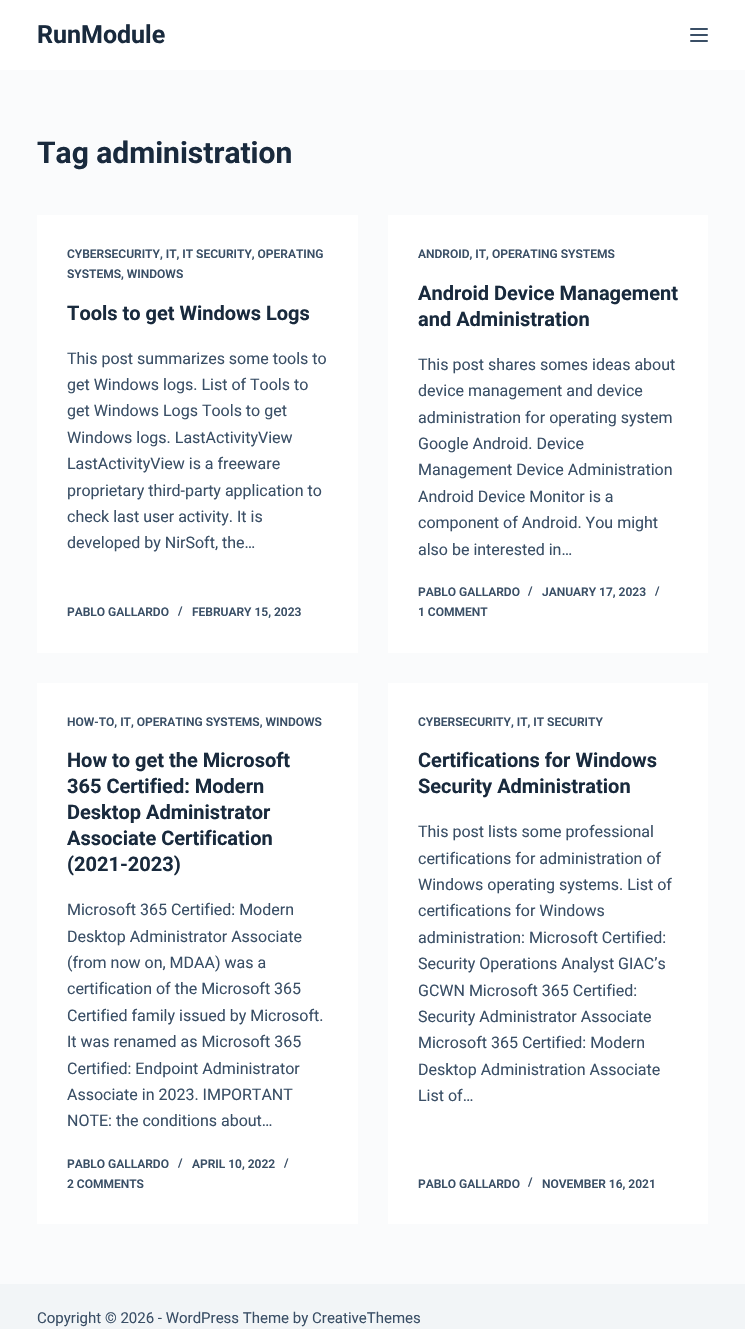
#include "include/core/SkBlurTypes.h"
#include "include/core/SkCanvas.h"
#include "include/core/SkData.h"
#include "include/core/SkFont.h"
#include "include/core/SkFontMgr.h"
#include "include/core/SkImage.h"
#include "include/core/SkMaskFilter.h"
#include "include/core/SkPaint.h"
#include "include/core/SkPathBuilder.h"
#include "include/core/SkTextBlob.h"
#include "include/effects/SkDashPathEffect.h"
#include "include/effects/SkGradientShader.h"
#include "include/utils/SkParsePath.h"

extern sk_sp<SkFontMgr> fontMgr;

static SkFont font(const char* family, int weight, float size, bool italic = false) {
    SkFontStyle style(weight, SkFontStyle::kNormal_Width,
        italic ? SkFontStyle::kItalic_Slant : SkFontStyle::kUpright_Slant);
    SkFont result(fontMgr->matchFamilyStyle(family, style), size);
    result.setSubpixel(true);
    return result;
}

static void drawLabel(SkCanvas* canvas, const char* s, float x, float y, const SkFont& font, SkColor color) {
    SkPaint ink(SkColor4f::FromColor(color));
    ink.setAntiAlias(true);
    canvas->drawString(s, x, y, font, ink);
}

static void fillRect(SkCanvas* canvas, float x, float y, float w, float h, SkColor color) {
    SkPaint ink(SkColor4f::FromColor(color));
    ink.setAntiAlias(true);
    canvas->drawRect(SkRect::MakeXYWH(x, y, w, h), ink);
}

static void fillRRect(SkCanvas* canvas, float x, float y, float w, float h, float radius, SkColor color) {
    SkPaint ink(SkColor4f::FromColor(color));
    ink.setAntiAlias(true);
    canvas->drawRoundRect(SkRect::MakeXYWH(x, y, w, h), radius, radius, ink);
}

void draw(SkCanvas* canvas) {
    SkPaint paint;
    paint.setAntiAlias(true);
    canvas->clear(0xFFFAFBFC);
    fillRect(canvas, 0, 0, 745, 70, 0xFFFFFFFF);
    SkFont font1 = font("Roboto", 700, 25);
    drawLabel(canvas, "RunModule", 37, 43, font1, 0xFF192A3D);
    fillRRect(canvas, 690, 28, 18, 2, 1, 0xFF3A4F66);
    fillRRect(canvas, 690, 34, 18, 2, 1, 0xFF3A4F66);
    fillRRect(canvas, 690, 40, 18, 2, 1, 0xFF3A4F66);
    SkFont font2 = font("Roboto", 700, 30);
    drawLabel(canvas, "Tag administration", 37, 163, font2, 0xFF192A3D);
    fillRect(canvas, 37, 215, 321, 438, 0xFFFFFFFF);
    SkFont font3 = font("Roboto", 600, 12);
    drawLabel(canvas, "CYBERSECURITY, IT, IT SECURITY, OPERATING", 67, 258, font3, 0xFF3A4F66);
    drawLabel(canvas, "SYSTEMS, WINDOWS", 67, 278, font3, 0xFF3A4F66);
    SkFont font4 = font("Roboto", 700, 20);
    drawLabel(canvas, "Tools to get Windows Logs", 67, 320, font4, 0xFF192A3D);
    SkFont font5 = font("Roboto", 400, 16);
    drawLabel(canvas, "This post summarizes some tools to", 67, 364, font5, 0xFF3A4F66);
    drawLabel(canvas, "get Windows logs. List of Tools to", 67, 390, font5, 0xFF3A4F66);
    drawLabel(canvas, "get Windows Logs Tools to get", 67, 416, font5, 0xFF3A4F66);
    drawLabel(canvas, "Windows logs. LastActivityView", 67, 443, font5, 0xFF3A4F66);
    drawLabel(canvas, "LastActivityView is a freeware", 67, 469, font5, 0xFF3A4F66);
    drawLabel(canvas, "proprietary third-party application to", 67, 496, font5, 0xFF3A4F66);
    drawLabel(canvas, "check last user activity. It is", 67, 522, font5, 0xFF3A4F66);
    drawLabel(canvas, "developed by NirSoft, the…", 67, 548, font5, 0xFF3A4F66);
    drawLabel(canvas, "PABLO GALLARDO", 67, 616, font3, 0xFF3A4F66);
    drawLabel(canvas, "/", 178, 615, font3, 0xFF3A4F66);
    drawLabel(canvas, "FEBRUARY 15, 2023", 192, 616, font3, 0xFF3A4F66);
    fillRect(canvas, 388, 215, 320, 438, 0xFFFFFFFF);
    drawLabel(canvas, "ANDROID, IT, OPERATING SYSTEMS", 418, 258, font3, 0xFF3A4F66);
    drawLabel(canvas, "Android Device Management", 418, 300, font4, 0xFF192A3D);
    drawLabel(canvas, "and Administration", 418, 326, font4, 0xFF192A3D);
    drawLabel(canvas, "This post shares somes ideas about", 418, 370, font5, 0xFF3A4F66);
    drawLabel(canvas, "device management and device", 418, 396, font5, 0xFF3A4F66);
    drawLabel(canvas, "administration for operating system", 418, 423, font5, 0xFF3A4F66);
    drawLabel(canvas, "Google Android. Device", 418, 449, font5, 0xFF3A4F66);
    drawLabel(canvas, "Management Device Administration", 418, 475, font5, 0xFF3A4F66);
    drawLabel(canvas, "Android Device Monitor is a", 418, 502, font5, 0xFF3A4F66);
    drawLabel(canvas, "component of Android. You might", 418, 528, font5, 0xFF3A4F66);
    drawLabel(canvas, "also be interested in…", 418, 555, font5, 0xFF3A4F66);
    drawLabel(canvas, "PABLO GALLARDO", 418, 596, font3, 0xFF3A4F66);
    drawLabel(canvas, "/", 528, 595, font3, 0xFF3A4F66);
    drawLabel(canvas, "JANUARY 17, 2023", 542, 596, font3, 0xFF3A4F66);
    drawLabel(canvas, "/", 655, 595, font3, 0xFF3A4F66);
    drawLabel(canvas, "1 COMMENT", 418, 616, font3, 0xFF3A4F66);
    fillRect(canvas, 37, 683, 321, 541, 0xFFFFFFFF);
    drawLabel(canvas, "HOW-TO, IT, OPERATING SYSTEMS, WINDOWS", 67, 726, font3, 0xFF3A4F66);
    drawLabel(canvas, "How to get the Microsoft", 67, 767, font4, 0xFF192A3D);
    drawLabel(canvas, "365 Certified: Modern", 67, 793, font4, 0xFF192A3D);
    drawLabel(canvas, "Desktop Administrator", 67, 819, font4, 0xFF192A3D);
    drawLabel(canvas, "Associate Certification", 67, 845, font4, 0xFF192A3D);
    drawLabel(canvas, "(2021-2023)", 67, 871, font4, 0xFF192A3D);
    drawLabel(canvas, "Microsoft 365 Certified: Modern", 67, 915, font5, 0xFF3A4F66);
    drawLabel(canvas, "Desktop Administrator Associate", 67, 942, font5, 0xFF3A4F66);
    drawLabel(canvas, "(from now on, MDAA) was a", 67, 968, font5, 0xFF3A4F66);
    drawLabel(canvas, "certification of the Microsoft 365", 67, 994, font5, 0xFF3A4F66);
    drawLabel(canvas, "Certified family issued by Microsoft.", 67, 1021, font5, 0xFF3A4F66);
    drawLabel(canvas, "It was renamed as Microsoft 365", 67, 1047, font5, 0xFF3A4F66);
    drawLabel(canvas, "Certified: Endpoint Administrator", 67, 1074, font5, 0xFF3A4F66);
    drawLabel(canvas, "Associate in 2023. IMPORTANT", 67, 1100, font5, 0xFF3A4F66);
    drawLabel(canvas, "NOTE: the conditions about…", 67, 1126, font5, 0xFF3A4F66);
    drawLabel(canvas, "PABLO GALLARDO", 67, 1168, font3, 0xFF3A4F66);
    drawLabel(canvas, "/", 178, 1167, font3, 0xFF3A4F66);
    drawLabel(canvas, "APRIL 10, 2022", 192, 1168, font3, 0xFF3A4F66);
    drawLabel(canvas, "/", 284, 1167, font3, 0xFF3A4F66);
    drawLabel(canvas, "2 COMMENTS", 67, 1188, font3, 0xFF3A4F66);
    fillRect(canvas, 388, 683, 320, 541, 0xFFFFFFFF);
    drawLabel(canvas, "CYBERSECURITY, IT, IT SECURITY", 418, 726, font3, 0xFF3A4F66);
    drawLabel(canvas, "Certifications for Windows", 418, 767, font4, 0xFF192A3D);
    drawLabel(canvas, "Security Administration", 418, 793, font4, 0xFF192A3D);
    drawLabel(canvas, "This post lists some professional", 418, 837, font5, 0xFF3A4F66);
    drawLabel(canvas, "certifications for administration of", 418, 864, font5, 0xFF3A4F66);
    drawLabel(canvas, "Windows operating systems. List of", 418, 890, font5, 0xFF3A4F66);
    drawLabel(canvas, "certifications for Windows", 418, 916, font5, 0xFF3A4F66);
    drawLabel(canvas, "administration: Microsoft Certified:", 418, 943, font5, 0xFF3A4F66);
    drawLabel(canvas, "Security Operations Analyst GIAC’s", 418, 969, font5, 0xFF3A4F66);
    drawLabel(canvas, "GCWN Microsoft 365 Certified:", 418, 996, font5, 0xFF3A4F66);
    drawLabel(canvas, "Security Administrator Associate", 418, 1022, font5, 0xFF3A4F66);
    drawLabel(canvas, "Microsoft 365 Certified: Modern", 418, 1048, font5, 0xFF3A4F66);
    drawLabel(canvas, "Desktop Administration Associate", 418, 1075, font5, 0xFF3A4F66);
    drawLabel(canvas, "List of…", 418, 1101, font5, 0xFF3A4F66);
    drawLabel(canvas, "PABLO GALLARDO", 418, 1188, font3, 0xFF3A4F66);
    drawLabel(canvas, "/", 528, 1186, font3, 0xFF3A4F66);
    drawLabel(canvas, "NOVEMBER 16, 2021", 542, 1188, font3, 0xFF3A4F66);
    fillRect(canvas, 0, 1284, 745, 45, 0xFFF2F5F7);
    SkFont font6 = font("Roboto", 400, 15);
    drawLabel(canvas, "Copyright © 2026 - WordPress Theme by CreativeThemes", 37, 1323, font6, 0xFF3A4F66);
}
